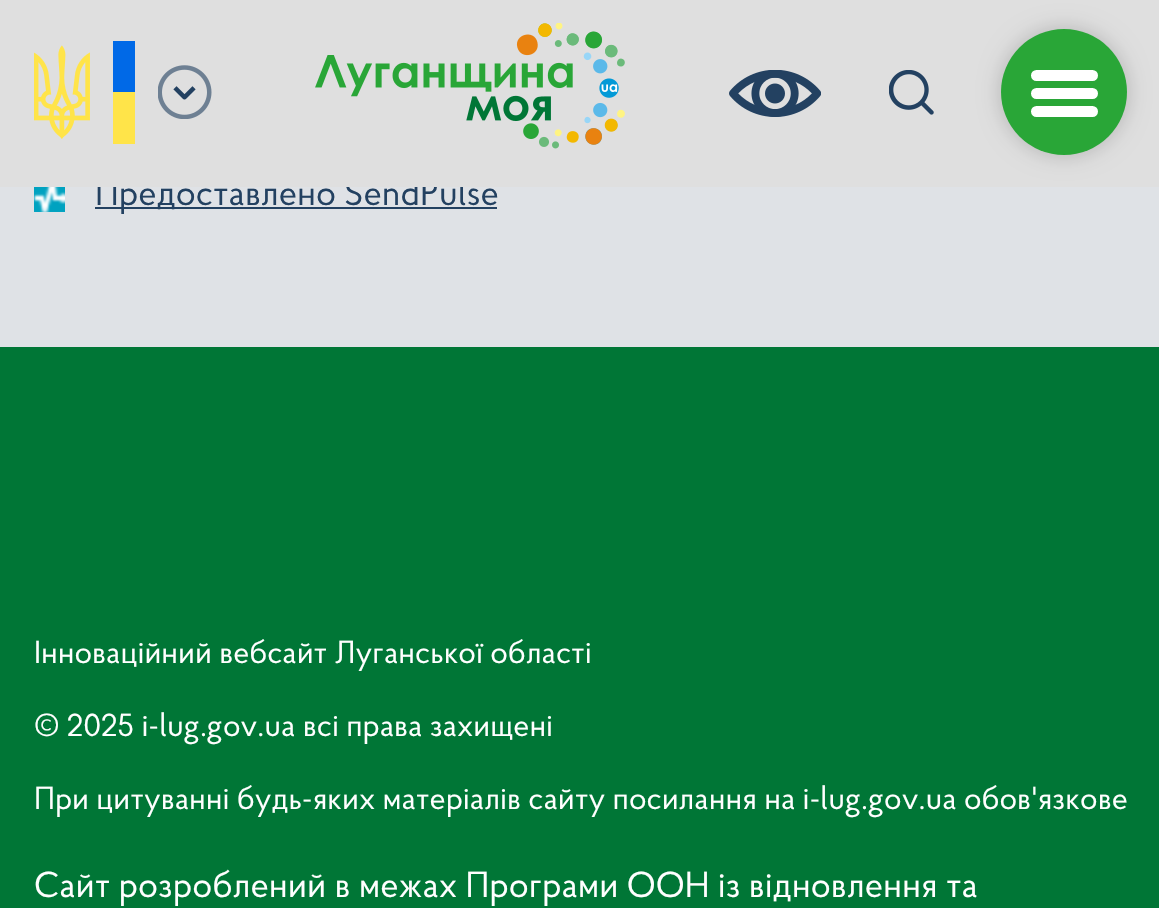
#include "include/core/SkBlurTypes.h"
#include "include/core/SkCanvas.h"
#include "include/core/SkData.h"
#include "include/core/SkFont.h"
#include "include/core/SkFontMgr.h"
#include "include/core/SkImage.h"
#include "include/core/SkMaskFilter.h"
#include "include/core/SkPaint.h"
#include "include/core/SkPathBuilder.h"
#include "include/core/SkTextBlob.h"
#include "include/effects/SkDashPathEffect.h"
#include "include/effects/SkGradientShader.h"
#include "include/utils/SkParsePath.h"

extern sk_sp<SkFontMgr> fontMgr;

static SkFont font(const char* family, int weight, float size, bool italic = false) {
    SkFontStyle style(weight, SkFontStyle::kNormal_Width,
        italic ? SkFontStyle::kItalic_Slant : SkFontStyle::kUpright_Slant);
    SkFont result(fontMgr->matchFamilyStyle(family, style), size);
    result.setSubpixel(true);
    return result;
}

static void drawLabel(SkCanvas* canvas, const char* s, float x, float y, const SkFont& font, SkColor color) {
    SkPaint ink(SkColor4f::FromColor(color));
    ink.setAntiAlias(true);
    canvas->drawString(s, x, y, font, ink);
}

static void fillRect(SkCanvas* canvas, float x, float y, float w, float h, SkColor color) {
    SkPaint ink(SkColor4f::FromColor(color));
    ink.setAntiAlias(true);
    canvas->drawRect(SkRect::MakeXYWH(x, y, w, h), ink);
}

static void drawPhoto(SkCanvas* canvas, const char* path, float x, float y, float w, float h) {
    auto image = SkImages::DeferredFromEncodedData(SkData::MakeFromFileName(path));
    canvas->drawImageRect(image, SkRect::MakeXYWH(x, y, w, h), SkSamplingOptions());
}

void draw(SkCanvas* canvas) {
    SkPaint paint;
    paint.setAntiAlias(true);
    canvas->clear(0xFFDFE2E6);
    fillRect(canvas, 95, 207, 402, 2, 0xFF234161);
    SkFont font1 = font("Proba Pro", 400, 36);
    drawLabel(canvas, "Предоставлено SendPulse", 95, 205, font1, 0xFF234161);
    fillRect(canvas, 0, 0, 1159, 187, 0xFFDFDFDF);
    drawPhoto(canvas, "assets/img1.png", 34, 45, 56, 94);
    fillRect(canvas, 113, 41, 22, 51, 0xFF0069E7);
    fillRect(canvas, 113, 92, 22, 52, 0xFFFFE449);
    drawPhoto(canvas, "assets/img2.png", 158, 65, 54, 54);
    drawPhoto(canvas, "assets/img3.png", 315, 23, 310, 126);
    drawPhoto(canvas, "assets/img4.png", 729, 70, 92, 47);
    drawPhoto(canvas, "assets/img5.png", 889, 70, 45, 45);
    paint.setColor(0x33000000);
    paint.setMaskFilter(SkMaskFilter::MakeBlur(kNormal_SkBlurStyle, 11));
    canvas->drawRoundRect(SkRect::MakeXYWH(1001, 29, 126, 126), 63, 63, paint);
    paint.setMaskFilter(nullptr);
    paint.setColor(0xFF29A637);
    canvas->drawCircle(1064, 92, 63, paint);
    paint.setColor(0xFFFFFFFF);
    canvas->drawRoundRect(SkRect::MakeXYWH(1032, 89, 65, 9), 4.5f, 4.5f, paint);
    paint.setStroke(true);
    paint.setStrokeWidth(2);
    canvas->drawRoundRect(SkRect::MakeXYWH(1032, 89, 65, 9), 4.5f, 4.5f, paint);
    paint.setStroke(false);
    canvas->drawRoundRect(SkRect::MakeXYWH(1032, 71, 65, 9), 4.5f, 4.5f, paint);
    paint.setStroke(true);
    canvas->drawRoundRect(SkRect::MakeXYWH(1032, 71, 65, 9), 4.5f, 4.5f, paint);
    paint.setStroke(false);
    canvas->drawRoundRect(SkRect::MakeXYWH(1032, 107, 65, 9), 4.5f, 4.5f, paint);
    paint.setStroke(true);
    canvas->drawRoundRect(SkRect::MakeXYWH(1032, 107, 65, 9), 4.5f, 4.5f, paint);
    drawPhoto(canvas, "assets/img6.png", 34, 187, 31, 25);
    fillRect(canvas, 0, 347, 1159, 561, 0xFF007636);
    SkFont font2 = font("Proba Pro", 400, 31.7f);
    drawLabel(canvas, "Iнновацiйний вебсайт Луганської областi", 34, 663, font2, 0xFFFFFFFF);
    drawLabel(canvas, "© 2025 i-lug.gov.ua всі права захищені", 34, 736, font2, 0xFFFFFFFF);
    drawLabel(canvas, "При цитуванні будь-яких матеріалів сайту посилання на i-lug.gov.ua обов'язкове", 34, 809, font2, 0xFFFFFFFF);
    drawLabel(canvas, "Сайт розроблений в межах Програми ООН із відновлення та", 34, 897, font1, 0xFFFFFFFF);
}
